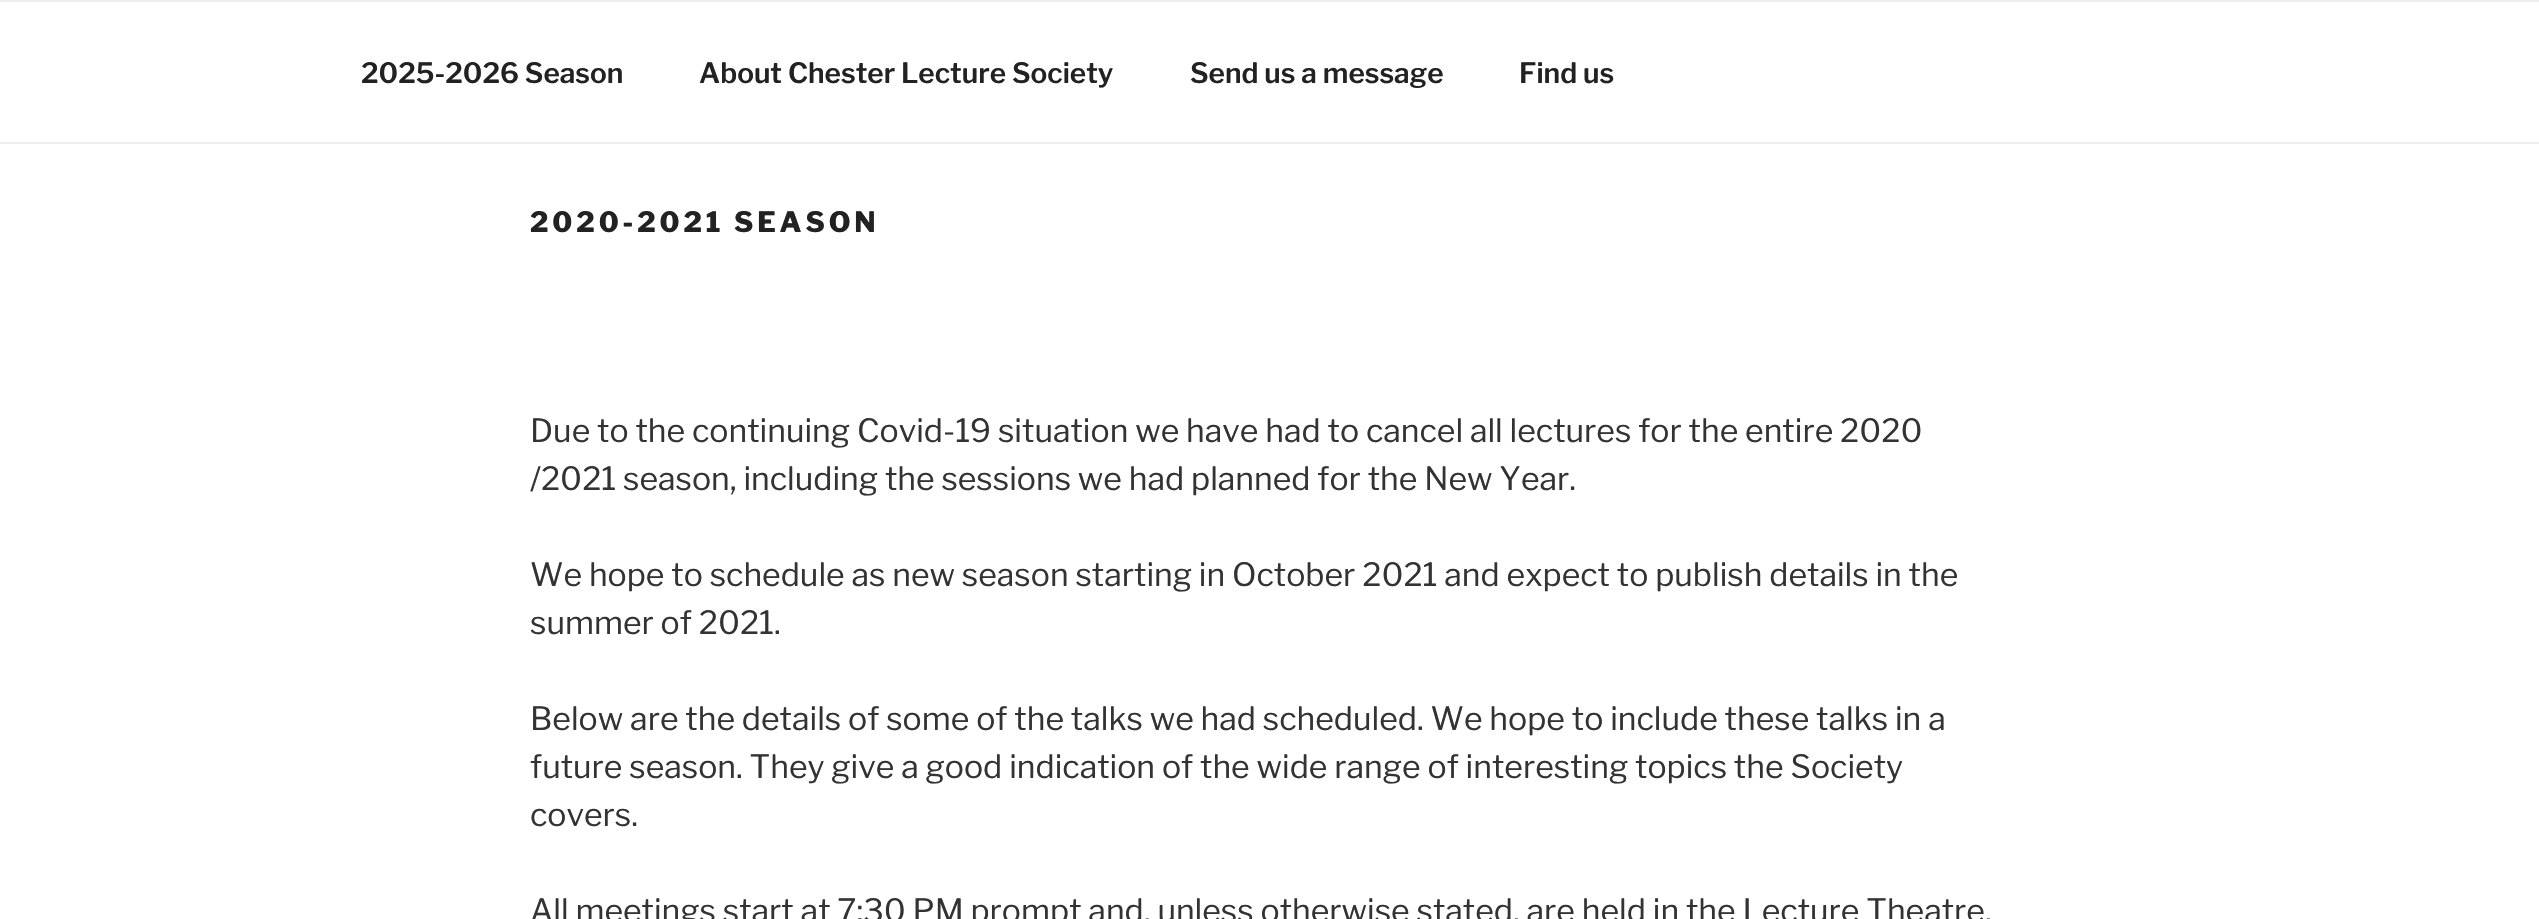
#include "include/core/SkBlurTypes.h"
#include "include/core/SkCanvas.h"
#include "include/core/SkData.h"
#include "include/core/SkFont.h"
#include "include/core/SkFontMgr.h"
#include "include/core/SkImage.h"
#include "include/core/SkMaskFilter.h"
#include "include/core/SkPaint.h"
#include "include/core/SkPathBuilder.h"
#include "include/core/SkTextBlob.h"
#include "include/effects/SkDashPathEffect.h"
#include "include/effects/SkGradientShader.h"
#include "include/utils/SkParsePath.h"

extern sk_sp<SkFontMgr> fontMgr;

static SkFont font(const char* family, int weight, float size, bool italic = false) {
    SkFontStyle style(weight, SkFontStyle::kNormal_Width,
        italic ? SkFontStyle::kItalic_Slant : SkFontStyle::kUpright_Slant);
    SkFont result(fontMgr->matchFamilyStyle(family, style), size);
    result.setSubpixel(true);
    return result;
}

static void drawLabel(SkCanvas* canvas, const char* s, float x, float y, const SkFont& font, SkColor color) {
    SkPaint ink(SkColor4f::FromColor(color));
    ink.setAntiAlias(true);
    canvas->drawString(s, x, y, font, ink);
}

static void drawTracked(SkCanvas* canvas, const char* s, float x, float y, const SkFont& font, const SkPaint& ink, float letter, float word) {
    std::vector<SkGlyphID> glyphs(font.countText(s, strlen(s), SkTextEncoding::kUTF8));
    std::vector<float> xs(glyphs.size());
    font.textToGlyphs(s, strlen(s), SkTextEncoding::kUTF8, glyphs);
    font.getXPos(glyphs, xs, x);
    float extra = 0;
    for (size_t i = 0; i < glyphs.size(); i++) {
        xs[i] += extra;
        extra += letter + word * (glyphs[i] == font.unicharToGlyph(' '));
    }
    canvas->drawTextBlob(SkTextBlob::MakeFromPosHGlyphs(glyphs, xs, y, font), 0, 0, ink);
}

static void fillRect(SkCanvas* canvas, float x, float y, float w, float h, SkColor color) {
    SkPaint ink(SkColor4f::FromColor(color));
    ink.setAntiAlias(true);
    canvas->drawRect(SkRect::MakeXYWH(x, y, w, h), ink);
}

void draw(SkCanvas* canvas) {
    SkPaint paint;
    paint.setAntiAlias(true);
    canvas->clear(0xFFFFFFFF);
    fillRect(canvas, 0, 0, 2539, 2, 0xFFEEEEEE);
    fillRect(canvas, 0, 142, 2539, 2, 0xFFEEEEEE);
    SkFont font1 = font("Libre Franklin", 600, 28);
    drawLabel(canvas, "2025-2026 Season", 361, 83, font1, 0xFF222222);
    drawLabel(canvas, "About Chester Lecture Society", 699, 83, font1, 0xFF222222);
    drawLabel(canvas, "Send us a message", 1190, 83, font1, 0xFF222222);
    drawLabel(canvas, "Find us", 1519, 83, font1, 0xFF222222);
    SkFont font2 = font("Libre Franklin", 800, 28);
    paint.setColor(0xFF222222);
    drawTracked(canvas, "2020-2021 SEASON", 530, 232, font2, paint, 3.9f, 0);
    SkFont font3 = font("Libre Franklin", 400, 32);
    drawLabel(canvas, "Due to the continuing Covid-19 situation we have had to cancel all lectures for the entire 2020", 530, 442, font3, 0xFF333333);
    drawLabel(canvas, "/2021 season, including the sessions we had planned for the New Year.", 530, 490, font3, 0xFF333333);
    drawLabel(canvas, "We hope to schedule as new season starting in October 2021 and expect to publish details in the", 530, 586, font3, 0xFF333333);
    drawLabel(canvas, "summer of 2021.", 530, 634, font3, 0xFF333333);
    drawLabel(canvas, "Below are the details of some of the talks we had scheduled. We hope to include these talks in a", 530, 730, font3, 0xFF333333);
    drawLabel(canvas, "future season. They give a good indication of the wide range of interesting topics the Society", 530, 778, font3, 0xFF333333);
    drawLabel(canvas, "covers.", 530, 826, font3, 0xFF333333);
    drawLabel(canvas, "All meetings start at 7:30 PM prompt and, unless otherwise stated, are held in the Lecture Theatre,", 530, 922, font3, 0xFF333333);
}
